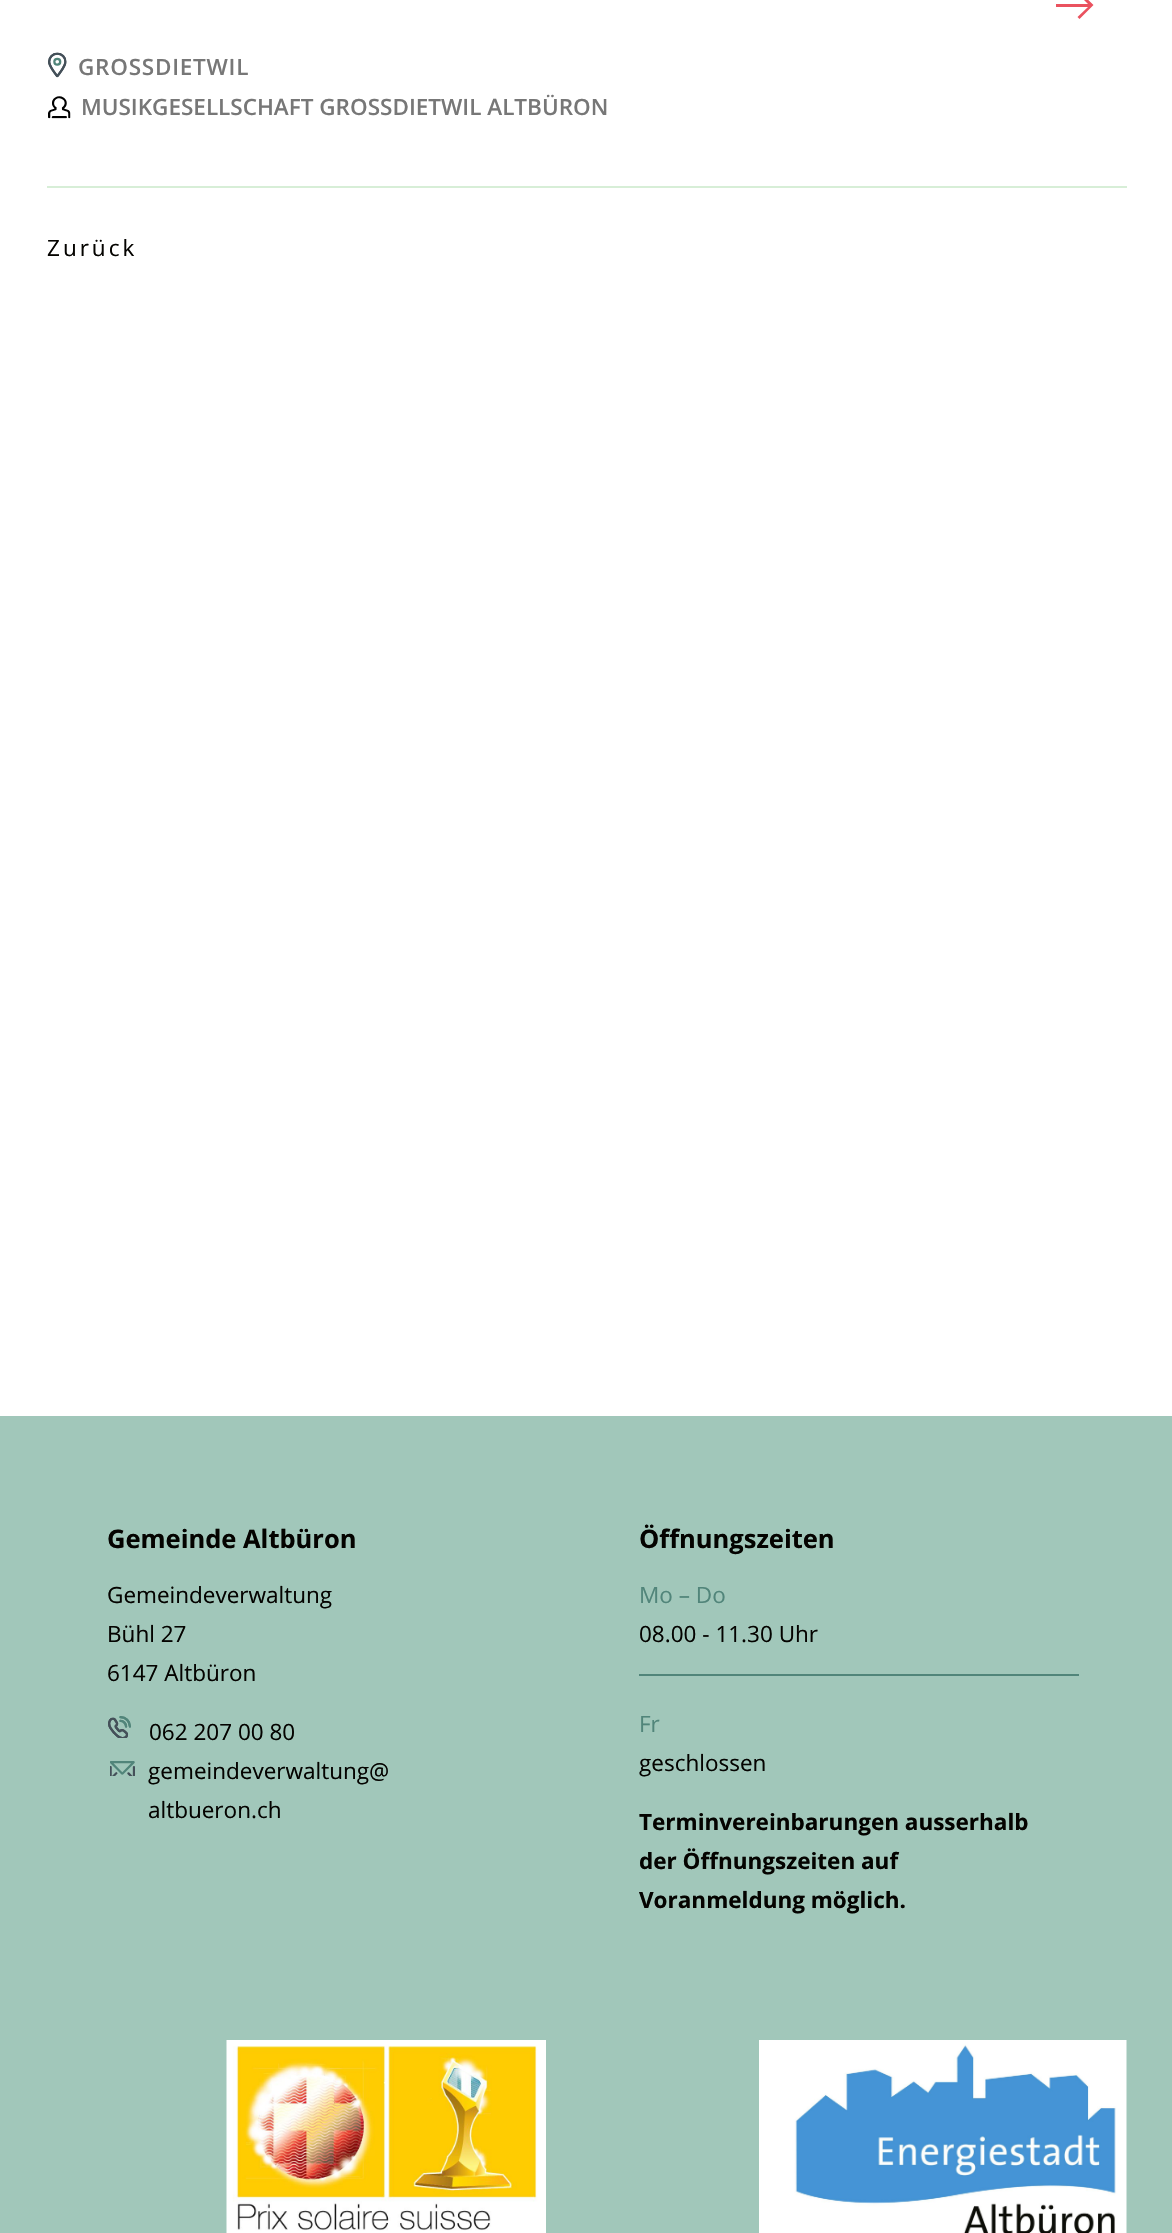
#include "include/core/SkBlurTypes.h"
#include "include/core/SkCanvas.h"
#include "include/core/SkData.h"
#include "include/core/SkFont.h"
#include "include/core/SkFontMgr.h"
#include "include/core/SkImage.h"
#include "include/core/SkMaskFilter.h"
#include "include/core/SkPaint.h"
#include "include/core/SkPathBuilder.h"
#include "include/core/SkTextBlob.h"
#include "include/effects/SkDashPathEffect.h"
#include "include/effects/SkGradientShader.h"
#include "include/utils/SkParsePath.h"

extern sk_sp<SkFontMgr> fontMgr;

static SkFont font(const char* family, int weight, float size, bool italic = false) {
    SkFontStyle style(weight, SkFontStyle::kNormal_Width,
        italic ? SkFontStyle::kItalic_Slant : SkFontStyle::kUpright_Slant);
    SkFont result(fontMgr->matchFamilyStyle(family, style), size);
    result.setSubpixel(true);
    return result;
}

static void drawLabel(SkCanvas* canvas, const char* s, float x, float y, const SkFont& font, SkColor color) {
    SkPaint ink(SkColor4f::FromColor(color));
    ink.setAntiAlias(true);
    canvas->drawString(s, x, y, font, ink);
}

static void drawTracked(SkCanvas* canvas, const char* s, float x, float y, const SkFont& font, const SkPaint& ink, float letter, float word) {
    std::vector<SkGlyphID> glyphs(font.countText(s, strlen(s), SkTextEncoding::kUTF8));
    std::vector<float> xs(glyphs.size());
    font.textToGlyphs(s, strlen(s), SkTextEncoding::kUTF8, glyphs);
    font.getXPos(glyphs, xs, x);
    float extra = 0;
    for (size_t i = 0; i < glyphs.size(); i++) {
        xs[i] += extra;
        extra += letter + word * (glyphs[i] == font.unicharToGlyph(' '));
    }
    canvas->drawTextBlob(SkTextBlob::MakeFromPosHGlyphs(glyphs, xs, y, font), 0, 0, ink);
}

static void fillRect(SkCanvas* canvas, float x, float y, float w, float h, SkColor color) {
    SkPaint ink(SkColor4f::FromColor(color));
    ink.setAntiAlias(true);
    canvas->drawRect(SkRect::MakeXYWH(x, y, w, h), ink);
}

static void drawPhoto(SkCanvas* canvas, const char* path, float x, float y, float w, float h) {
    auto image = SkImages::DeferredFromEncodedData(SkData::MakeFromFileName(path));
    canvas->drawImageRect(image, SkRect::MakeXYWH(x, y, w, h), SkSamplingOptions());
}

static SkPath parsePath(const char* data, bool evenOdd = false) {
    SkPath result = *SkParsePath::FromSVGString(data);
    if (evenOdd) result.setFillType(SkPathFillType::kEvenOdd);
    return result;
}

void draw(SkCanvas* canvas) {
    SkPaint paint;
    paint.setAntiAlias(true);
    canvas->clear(0xFFFFFFFF);
    fillRect(canvas, 47, 186, 1080, 2, 0xFFD7EED7);
    paint.setColor(0xFFEA525F);
    canvas->drawPath(parsePath("M1079.5-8.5L1077.5-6.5L1088 4H1056V7H1088L1077.5 17L1079.5 19L1093.5 5Z"), paint);
    drawPhoto(canvas, "assets/img1.png", 48, 52, 19, 26);
    SkFont font1 = font("Open Sans", 600, 22.5f);
    paint.setColor(0xFF777777);
    drawTracked(canvas, "GROSSDIETWIL", 78, 75, font1, paint, 0.75f, 0);
    drawPhoto(canvas, "assets/img2.png", 48, 96, 23, 23);
    drawLabel(canvas, "MUSIKGESELLSCHAFT GROSSDIETWIL ALTBÜRON", 81, 115, font1, 0xFF777777);
    SkFont font2 = font("Open Sans", 400, 22.5f);
    paint.setColor(0xFF040300);
    drawTracked(canvas, "Zurück", 47, 256, font2, paint, 3, 0);
    fillRect(canvas, 0, 1416, 1172, 817, 0xFFA1C7BA);
    SkFont font3 = font("Open Sans", 700, 25.5f);
    drawLabel(canvas, "Gemeinde Altbüron", 107, 1548, font3, 0xFF040300);
    SkFont font4 = font("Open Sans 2", 400, 22.5f);
    drawLabel(canvas, "Gemeindeverwaltung", 107, 1603, font4, 0xFF040300);
    drawLabel(canvas, "Bühl 27", 107, 1642, font4, 0xFF040300);
    drawLabel(canvas, "6147 Altbüron", 107, 1681, font4, 0xFF040300);
    drawPhoto(canvas, "assets/img3.png", 108, 1716, 23, 22);
    drawLabel(canvas, "062 207 00 80", 149, 1740, font4, 0xFF040300);
    drawPhoto(canvas, "assets/img4.png", 110, 1761, 25, 15);
    drawLabel(canvas, "gemeindeverwaltung@", 148, 1779, font4, 0xFF040300);
    drawLabel(canvas, "altbueron.ch", 148, 1818, font4, 0xFF040300);
    drawLabel(canvas, "Öffnungszeiten", 639, 1548, font3, 0xFF040300);
    fillRect(canvas, 639, 1674, 440, 2, 0xFF51857A);
    drawLabel(canvas, "Mo – Do", 639, 1603, font4, 0xFF51857A);
    drawLabel(canvas, "08.00 - 11.30 Uhr", 639, 1642, font4, 0xFF040300);
    drawLabel(canvas, "Fr", 639, 1732, font4, 0xFF51857A);
    drawLabel(canvas, "geschlossen", 639, 1771, font4, 0xFF040300);
    SkFont font5 = font("Open Sans", 700, 22.5f);
    drawLabel(canvas, "Terminvereinbarungen ausserhalb", 639, 1830, font5, 0xFF040300);
    drawLabel(canvas, "der Öffnungszeiten auf", 639, 1869, font5, 0xFF040300);
    drawLabel(canvas, "Voranmeldung möglich.", 639, 1908, font5, 0xFF040300);
    drawPhoto(canvas, "assets/img5.png", 226, 2040, 320, 193);
    drawPhoto(canvas, "assets/img6.png", 759, 2040, 368, 193);
}
